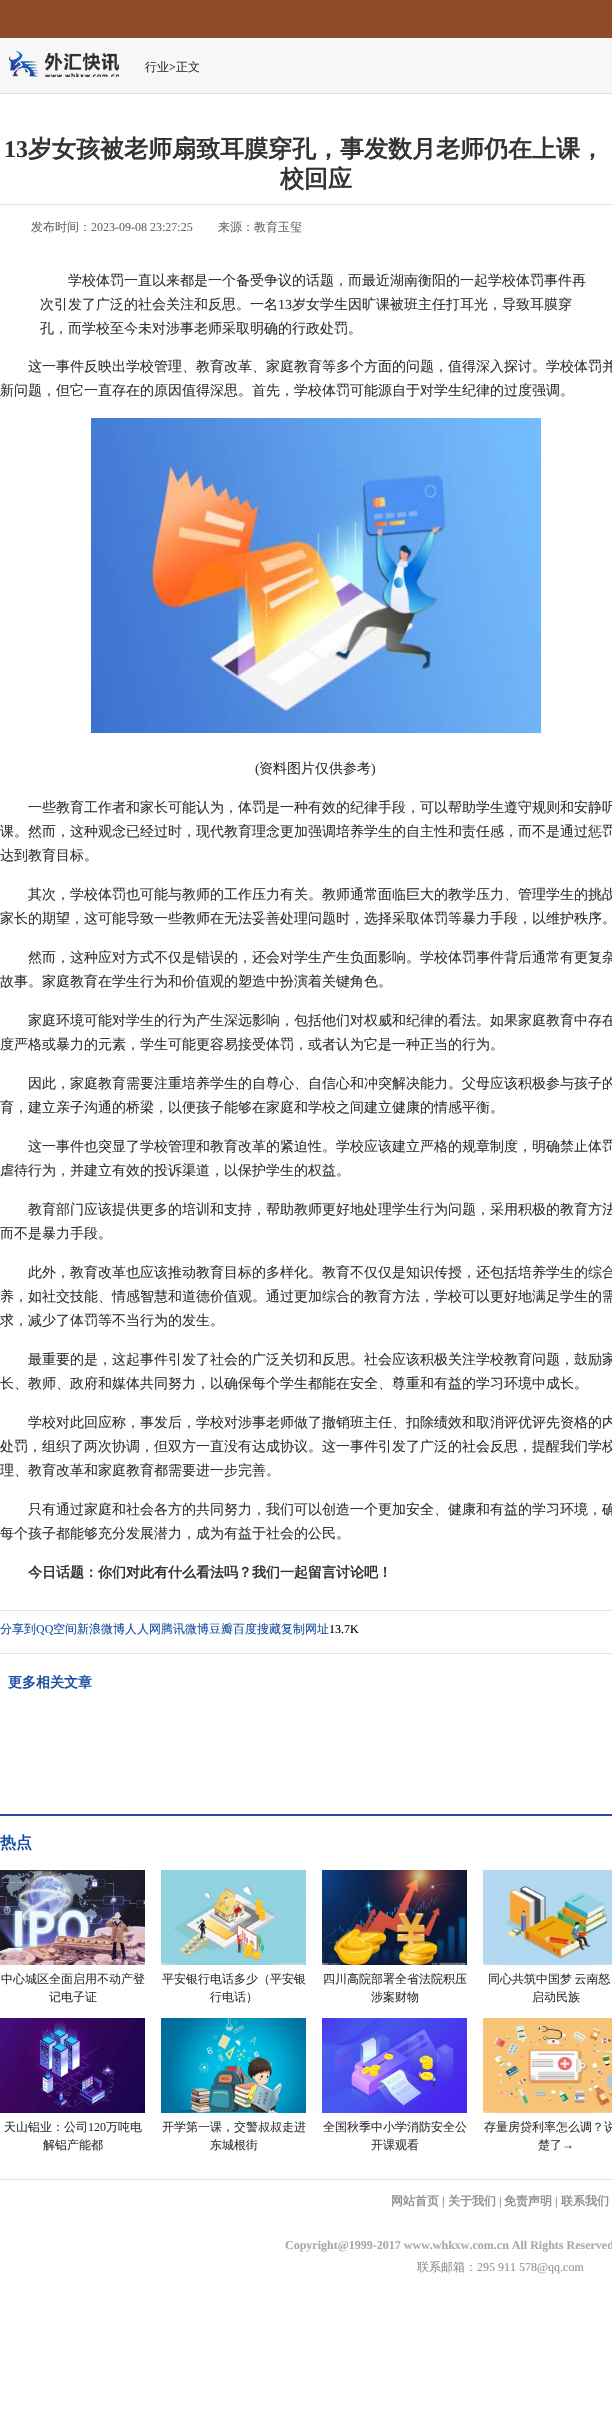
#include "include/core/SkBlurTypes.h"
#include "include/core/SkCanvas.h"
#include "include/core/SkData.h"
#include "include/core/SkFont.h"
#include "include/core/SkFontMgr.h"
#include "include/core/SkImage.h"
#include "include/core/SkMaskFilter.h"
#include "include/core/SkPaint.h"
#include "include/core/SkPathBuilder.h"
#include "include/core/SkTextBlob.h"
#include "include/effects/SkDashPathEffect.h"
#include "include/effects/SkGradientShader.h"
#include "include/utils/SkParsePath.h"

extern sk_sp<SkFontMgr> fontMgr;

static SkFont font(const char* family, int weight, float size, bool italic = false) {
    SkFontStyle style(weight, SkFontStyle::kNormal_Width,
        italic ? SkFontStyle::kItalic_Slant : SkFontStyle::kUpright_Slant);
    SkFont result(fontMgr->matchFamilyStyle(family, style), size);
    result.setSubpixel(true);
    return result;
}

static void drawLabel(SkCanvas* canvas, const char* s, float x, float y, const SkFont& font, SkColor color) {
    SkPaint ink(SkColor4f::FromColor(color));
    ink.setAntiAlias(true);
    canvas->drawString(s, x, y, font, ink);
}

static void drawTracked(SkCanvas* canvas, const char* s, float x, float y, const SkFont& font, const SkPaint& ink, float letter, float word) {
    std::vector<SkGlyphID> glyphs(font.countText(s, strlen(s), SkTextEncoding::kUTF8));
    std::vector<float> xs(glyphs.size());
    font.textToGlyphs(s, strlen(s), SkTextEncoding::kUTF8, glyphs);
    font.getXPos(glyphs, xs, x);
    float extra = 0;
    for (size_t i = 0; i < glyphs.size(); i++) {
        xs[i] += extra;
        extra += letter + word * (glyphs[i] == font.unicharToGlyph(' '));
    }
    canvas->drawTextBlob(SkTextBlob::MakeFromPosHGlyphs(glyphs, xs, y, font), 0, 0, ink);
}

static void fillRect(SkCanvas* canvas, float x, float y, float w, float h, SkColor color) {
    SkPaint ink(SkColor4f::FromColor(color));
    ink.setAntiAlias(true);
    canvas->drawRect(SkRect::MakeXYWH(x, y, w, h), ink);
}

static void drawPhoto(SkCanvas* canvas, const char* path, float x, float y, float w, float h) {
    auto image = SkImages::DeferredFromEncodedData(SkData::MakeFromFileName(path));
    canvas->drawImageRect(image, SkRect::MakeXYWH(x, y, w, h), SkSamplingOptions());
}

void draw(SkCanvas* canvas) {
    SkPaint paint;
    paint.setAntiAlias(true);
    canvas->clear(0xFFFFFFFF);
    fillRect(canvas, 0, 38, 612, 55, 0xFFF7F7F7);
    fillRect(canvas, 0, 93, 612, 1, 0xFFDCDCDC);
    fillRect(canvas, 0, 0, 612, 38, 0xFF8F4B27);
    drawPhoto(canvas, "assets/img1.png", 9, 51, 110, 26);
    SkFont font1 = font("WenQuanYi Zen Hei", 500, 12);
    drawLabel(canvas, "行业", 145, 71, font1, 0xFF333333);
    SkFont font2 = font("Liberation Serif", 400, 12);
    drawLabel(canvas, ">", 169, 71, font2, 0xFF333333);
    drawLabel(canvas, "正文", 176, 71, font1, 0xFF333333);
    SkFont font3 = font("Liberation Serif", 700, 24);
    drawLabel(canvas, "13", 4, 157, font3, 0xFF333333);
    SkFont font4 = font("WenQuanYi Zen Hei", 700, 24);
    drawLabel(canvas, "岁女孩被老师扇致耳膜穿孔，事发数月老师仍在上课，", 28, 157, font4, 0xFF333333);
    drawLabel(canvas, "校回应", 280, 187, font4, 0xFF333333);
    fillRect(canvas, 0, 204, 612, 1, 0xFFE4E4E4);
    drawLabel(canvas, "发布时间：", 31, 231, font1, 0xFF666666);
    drawLabel(canvas, "2023-09-08 23:27:25", 91, 231, font2, 0xFF666666);
    drawLabel(canvas, "来源：教育玉玺", 218, 231, font1, 0xFF666666);
    SkFont font5 = font("WenQuanYi Zen Hei", 500, 14);
    drawLabel(canvas, "学校体罚一直以来都是一个备受争议的话题，而最近湖南衡阳的一起学校体罚事件再", 68, 285, font5, 0xFF333333);
    drawLabel(canvas, "次引发了广泛的社会关注和反思。一名", 40, 309, font5, 0xFF333333);
    SkFont font6 = font("Liberation Serif", 400, 14);
    drawLabel(canvas, "13", 278, 309, font6, 0xFF333333);
    drawLabel(canvas, "岁女学生因旷课被班主任打耳光，导致耳膜穿", 292, 309, font5, 0xFF333333);
    drawLabel(canvas, "孔，而学校至今未对涉事老师采取明确的行政处罚。", 40, 333, font5, 0xFF333333);
    drawLabel(canvas, "这一事件反映出学校管理、教育改革、家庭教育等多个方面的问题，值得深入探讨。学校体罚并", 28, 371, font5, 0xFF333333);
    drawLabel(canvas, "新问题，但它一直存在的原因值得深思。首先，学校体罚可能源自于对学生纪律的过度强调。", 0, 395, font5, 0xFF333333);
    drawPhoto(canvas, "assets/img2.png", 91, 418, 450, 315);
    drawLabel(canvas, "(", 255, 773, font6, 0xFF333333);
    drawLabel(canvas, "资料图片仅供参考", 259, 773, font5, 0xFF333333);
    drawLabel(canvas, ")", 371, 773, font6, 0xFF333333);
    drawLabel(canvas, "一些教育工作者和家长可能认为，体罚是一种有效的纪律手段，可以帮助学生遵守规则和安静听", 28, 812, font5, 0xFF333333);
    drawLabel(canvas, "课。然而，这种观念已经过时，现代教育理念更加强调培养学生的自主性和责任感，而不是通过惩罚", 0, 836, font5, 0xFF333333);
    drawLabel(canvas, "达到教育目标。", 0, 860, font5, 0xFF333333);
    drawLabel(canvas, "其次，学校体罚也可能与教师的工作压力有关。教师通常面临巨大的教学压力、管理学生的挑战", 28, 899, font5, 0xFF333333);
    drawLabel(canvas, "家长的期望，这可能导致一些教师在无法妥善处理问题时，选择采取体罚等暴力手段，以维护秩序。", 0, 923, font5, 0xFF333333);
    drawLabel(canvas, "然而，这种应对方式不仅是错误的，还会对学生产生负面影响。学校体罚事件背后通常有更复杂", 28, 962, font5, 0xFF333333);
    drawLabel(canvas, "故事。家庭教育在学生行为和价值观的塑造中扮演着关键角色。", 0, 986, font5, 0xFF333333);
    drawLabel(canvas, "家庭环境可能对学生的行为产生深远影响，包括他们对权威和纪律的看法。如果家庭教育中存在", 28, 1025, font5, 0xFF333333);
    drawLabel(canvas, "度严格或暴力的元素，学生可能更容易接受体罚，或者认为它是一种正当的行为。", 0, 1049, font5, 0xFF333333);
    drawLabel(canvas, "因此，家庭教育需要注重培养学生的自尊心、自信心和冲突解决能力。父母应该积极参与孩子的", 28, 1088, font5, 0xFF333333);
    drawLabel(canvas, "育，建立亲子沟通的桥梁，以便孩子能够在家庭和学校之间建立健康的情感平衡。", 0, 1112, font5, 0xFF333333);
    drawLabel(canvas, "这一事件也突显了学校管理和教育改革的紧迫性。学校应该建立严格的规章制度，明确禁止体罚", 28, 1151, font5, 0xFF333333);
    drawLabel(canvas, "虐待行为，并建立有效的投诉渠道，以保护学生的权益。", 0, 1175, font5, 0xFF333333);
    drawLabel(canvas, "教育部门应该提供更多的培训和支持，帮助教师更好地处理学生行为问题，采用积极的教育方法", 28, 1214, font5, 0xFF333333);
    drawLabel(canvas, "而不是暴力手段。", 0, 1238, font5, 0xFF333333);
    drawLabel(canvas, "此外，教育改革也应该推动教育目标的多样化。教育不仅仅是知识传授，还包括培养学生的综合", 28, 1277, font5, 0xFF333333);
    drawLabel(canvas, "养，如社交技能、情感智慧和道德价值观。通过更加综合的教育方法，学校可以更好地满足学生的需", 0, 1301, font5, 0xFF333333);
    drawLabel(canvas, "求，减少了体罚等不当行为的发生。", 0, 1325, font5, 0xFF333333);
    drawLabel(canvas, "最重要的是，这起事件引发了社会的广泛关切和反思。社会应该积极关注学校教育问题，鼓励家", 28, 1364, font5, 0xFF333333);
    drawLabel(canvas, "长、教师、政府和媒体共同努力，以确保每个学生都能在安全、尊重和有益的学习环境中成长。", 0, 1388, font5, 0xFF333333);
    drawLabel(canvas, "学校对此回应称，事发后，学校对涉事老师做了撤销班主任、扣除绩效和取消评优评先资格的内", 28, 1427, font5, 0xFF333333);
    drawLabel(canvas, "处罚，组织了两次协调，但双方一直没有达成协议。这一事件引发了广泛的社会反思，提醒我们学校", 0, 1451, font5, 0xFF333333);
    drawLabel(canvas, "理、教育改革和家庭教育都需要进一步完善。", 0, 1475, font5, 0xFF333333);
    drawLabel(canvas, "只有通过家庭和社会各方的共同努力，我们可以创造一个更加安全、健康和有益的学习环境，确", 28, 1514, font5, 0xFF333333);
    drawLabel(canvas, "每个孩子都能够充分发展潜力，成为有益于社会的公民。", 0, 1538, font5, 0xFF333333);
    SkFont font7 = font("WenQuanYi Zen Hei", 700, 14);
    drawLabel(canvas, "今日话题：你们对此有什么看法吗？我们一起留言讨论吧！", 28, 1577, font7, 0xFF333333);
    fillRect(canvas, 0, 1610, 612, 1, 0xFFE4E4E4);
    drawLabel(canvas, "分享到", 0, 1633, font1, 0xFF174FA2);
    drawLabel(canvas, "QQ", 36, 1633, font2, 0xFF174FA2);
    drawLabel(canvas, "空间新浪微博人人网腾讯微博豆瓣百度搜藏复制网址", 53, 1633, font1, 0xFF174FA2);
    drawLabel(canvas, "13.7K", 329, 1633, font2, 0xFF000000);
    fillRect(canvas, 0, 1653, 612, 1, 0xFFE4E4E4);
    drawLabel(canvas, "更多相关文章", 8, 1687, font7, 0xFF1E50A2);
    fillRect(canvas, 0, 1814, 612, 2, 0xFF1F4FA1);
    SkFont font8 = font("WenQuanYi Zen Hei", 700, 16);
    drawLabel(canvas, "热点", 0, 1848, font8, 0xFF174FA2);
    drawPhoto(canvas, "assets/img3.png", 0, 1870, 145, 95);
    drawLabel(canvas, "中心城区全面启用不动产登", 1, 1983, font1, 0xFF333333);
    drawLabel(canvas, "记电子证", 49, 2001, font1, 0xFF333333);
    drawPhoto(canvas, "assets/img4.png", 161, 1870, 145, 95);
    drawLabel(canvas, "平安银行电话多少（平安银", 162, 1983, font1, 0xFF333333);
    drawLabel(canvas, "行电话）", 210, 2001, font1, 0xFF333333);
    drawPhoto(canvas, "assets/img5.png", 322, 1870, 145, 95);
    drawLabel(canvas, "四川高院部署全省法院积压", 323, 1983, font1, 0xFF333333);
    drawLabel(canvas, "涉案财物", 371, 2001, font1, 0xFF333333);
    drawPhoto(canvas, "assets/img6.png", 483, 1870, 129, 95);
    paint.setColor(0xFF333333);
    drawTracked(canvas, "同心共筑中国梦 云南怒", 488, 1983, font1, paint, 0, -1);
    drawLabel(canvas, "启动民族", 532, 2001, font1, 0xFF333333);
    drawPhoto(canvas, "assets/img7.png", 0, 2018, 145, 95);
    drawLabel(canvas, "天山铝业：公司", 4, 2131, font1, 0xFF333333);
    drawLabel(canvas, "120", 88, 2131, font2, 0xFF333333);
    drawLabel(canvas, "万吨电", 106, 2131, font1, 0xFF333333);
    drawLabel(canvas, "解铝产能都", 43, 2149, font1, 0xFF333333);
    drawPhoto(canvas, "assets/img8.png", 161, 2018, 145, 95);
    drawLabel(canvas, "开学第一课，交警叔叔走进", 162, 2131, font1, 0xFF333333);
    drawLabel(canvas, "东城根街", 210, 2149, font1, 0xFF333333);
    drawPhoto(canvas, "assets/img9.png", 322, 2018, 145, 95);
    drawLabel(canvas, "全国秋季中小学消防安全公", 323, 2131, font1, 0xFF333333);
    drawLabel(canvas, "开课观看", 371, 2149, font1, 0xFF333333);
    drawPhoto(canvas, "assets/img10.png", 483, 2018, 129, 95);
    drawLabel(canvas, "存量房贷利率怎么调？说", 484, 2131, font1, 0xFF333333);
    drawLabel(canvas, "楚了", 538, 2149, font1, 0xFF333333);
    drawLabel(canvas, "→", 562, 2149, font2, 0xFF333333);
    fillRect(canvas, 0, 2179, 612, 1, 0xFFE3E3E3);
    SkFont font9 = font("WenQuanYi Zen Hei", 700, 12);
    drawLabel(canvas, "网站首页", 391, 2205, font9, 0xFF929292);
    SkFont font10 = font("Liberation Serif", 700, 12);
    drawLabel(canvas, "|", 442, 2205, font10, 0xFF929292);
    drawLabel(canvas, "关于我们", 448, 2205, font9, 0xFF929292);
    drawLabel(canvas, "|", 499, 2205, font10, 0xFF929292);
    drawLabel(canvas, "免责声明", 504, 2205, font9, 0xFF929292);
    drawLabel(canvas, "|", 555, 2205, font10, 0xFF929292);
    drawLabel(canvas, "联系我们", 561, 2205, font9, 0xFF929292);
    drawLabel(canvas, "Copyright@1999-2017 www.whkxw.com.cn All Rights Reserved", 285, 2249, font10, 0xFFA9A9A9);
    drawLabel(canvas, "联系邮箱：", 417, 2271, font1, 0xFF929292);
    drawLabel(canvas, "295 911 578@qq.com", 477, 2271, font2, 0xFF929292);
}
